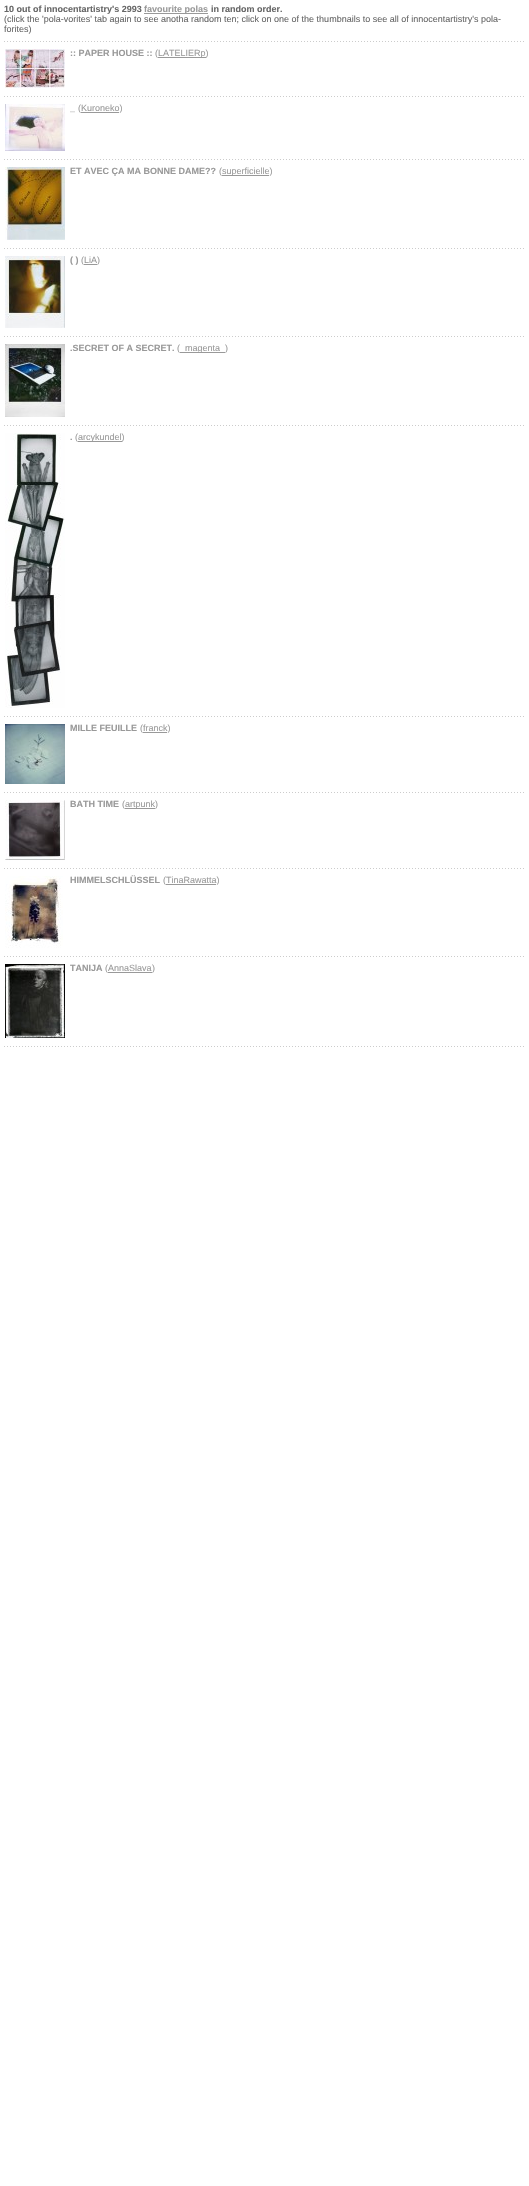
#include "include/core/SkBlurTypes.h"
#include "include/core/SkCanvas.h"
#include "include/core/SkData.h"
#include "include/core/SkFont.h"
#include "include/core/SkFontMgr.h"
#include "include/core/SkImage.h"
#include "include/core/SkMaskFilter.h"
#include "include/core/SkPaint.h"
#include "include/core/SkPathBuilder.h"
#include "include/core/SkTextBlob.h"
#include "include/effects/SkDashPathEffect.h"
#include "include/effects/SkGradientShader.h"
#include "include/utils/SkParsePath.h"

extern sk_sp<SkFontMgr> fontMgr;

static SkFont font(const char* family, int weight, float size, bool italic = false) {
    SkFontStyle style(weight, SkFontStyle::kNormal_Width,
        italic ? SkFontStyle::kItalic_Slant : SkFontStyle::kUpright_Slant);
    SkFont result(fontMgr->matchFamilyStyle(family, style), size);
    result.setSubpixel(true);
    return result;
}

static void drawLabel(SkCanvas* canvas, const char* s, float x, float y, const SkFont& font, SkColor color) {
    SkPaint ink(SkColor4f::FromColor(color));
    ink.setAntiAlias(true);
    canvas->drawString(s, x, y, font, ink);
}

static void fillRect(SkCanvas* canvas, float x, float y, float w, float h, SkColor color) {
    SkPaint ink(SkColor4f::FromColor(color));
    ink.setAntiAlias(true);
    canvas->drawRect(SkRect::MakeXYWH(x, y, w, h), ink);
}

static void drawPhoto(SkCanvas* canvas, const char* path, float x, float y, float w, float h) {
    auto image = SkImages::DeferredFromEncodedData(SkData::MakeFromFileName(path));
    canvas->drawImageRect(image, SkRect::MakeXYWH(x, y, w, h), SkSamplingOptions());
}

void draw(SkCanvas* canvas) {
    SkPaint paint;
    paint.setAntiAlias(true);
    canvas->clear(0xFFFFFFFF);
    SkFont font1 = font("Liberation Sans", 700, 9);
    drawLabel(canvas, "10 out of innocentartistry's 2993", 4, 12, font1, 0xFF666666);
    fillRect(canvas, 144, 13, 64, 1, 0xFF999999);
    drawLabel(canvas, "favourite polas", 144, 12, font1, 0xFF999999);
    drawLabel(canvas, "in random order.", 211, 12, font1, 0xFF666666);
    SkFont font2 = font("Liberation Sans", 400, 9);
    drawLabel(canvas, "(click the 'pola-vorites' tab again to see anotha random ten; click on one of the thumbnails to see all of innocentartistry's pola-", 4, 22, font2, 0xFF666666);
    drawLabel(canvas, "forites)", 4, 32, font2, 0xFF666666);
    drawPhoto(canvas, "assets/img1.png", 4, 41, 520, 1);
    drawPhoto(canvas, "assets/img2.png", 5, 49, 60, 39);
    drawLabel(canvas, ":: PAPER HOUSE ::", 70, 56, font1, 0xFF999999);
    drawLabel(canvas, "(", 155, 56, font2, 0xFF999999);
    fillRect(canvas, 158, 57, 48, 1, 0xFF999999);
    drawLabel(canvas, "LATELIERp)", 158, 56, font2, 0xFF999999);
    drawPhoto(canvas, "assets/img1.png", 4, 96, 520, 1);
    drawPhoto(canvas, "assets/img3.png", 5, 104, 60, 47);
    drawLabel(canvas, "_", 70, 111, font1, 0xFF999999);
    fillRect(canvas, 81, 112, 38, 1, 0xFF999999);
    drawLabel(canvas, "(Kuroneko)", 78, 111, font2, 0xFF999999);
    drawPhoto(canvas, "assets/img1.png", 4, 159, 520, 1);
    drawPhoto(canvas, "assets/img4.png", 5, 167, 60, 73);
    drawLabel(canvas, "ET AVEC ÇA MA BONNE DAME?\077", 70, 174, font1, 0xFF999999);
    drawLabel(canvas, "(", 219, 174, font2, 0xFF999999);
    fillRect(canvas, 222, 175, 47, 1, 0xFF999999);
    drawLabel(canvas, "superficielle)", 222, 174, font2, 0xFF999999);
    drawPhoto(canvas, "assets/img1.png", 4, 248, 520, 1);
    drawPhoto(canvas, "assets/img5.png", 5, 256, 60, 72);
    drawLabel(canvas, "( )", 70, 263, font1, 0xFF999999);
    drawLabel(canvas, "(LiA)", 81, 263, font2, 0xFF999999);
    fillRect(canvas, 84, 264, 13, 1, 0xFF999999);
    drawPhoto(canvas, "assets/img1.png", 4, 336, 520, 1);
    drawPhoto(canvas, "assets/img6.png", 5, 344, 60, 73);
    drawLabel(canvas, ".SECRET OF A SECRET.", 70, 351, font1, 0xFF999999);
    drawLabel(canvas, "(", 177, 351, font2, 0xFF999999);
    fillRect(canvas, 180, 352, 45, 1, 0xFF999999);
    drawLabel(canvas, "magenta", 185, 351, font2, 0xFF999999);
    drawLabel(canvas, ")", 225, 351, font2, 0xFF999999);
    drawPhoto(canvas, "assets/img1.png", 4, 425, 520, 1);
    drawPhoto(canvas, "assets/img7.png", 5, 433, 60, 275);
    drawLabel(canvas, ".", 70, 440, font1, 0xFF999999);
    drawLabel(canvas, "(", 75, 440, font2, 0xFF999999);
    fillRect(canvas, 78, 441, 44, 1, 0xFF999999);
    drawLabel(canvas, "arcykundel)", 78, 440, font2, 0xFF999999);
    drawPhoto(canvas, "assets/img1.png", 4, 716, 520, 1);
    drawPhoto(canvas, "assets/img8.png", 5, 724, 60, 60);
    drawLabel(canvas, "MILLE FEUILLE", 70, 731, font1, 0xFF999999);
    drawLabel(canvas, "(franck)", 140, 731, font2, 0xFF999999);
    fillRect(canvas, 143, 732, 24, 1, 0xFF999999);
    drawPhoto(canvas, "assets/img1.png", 4, 792, 520, 1);
    drawPhoto(canvas, "assets/img9.png", 5, 800, 60, 60);
    drawLabel(canvas, "BATH TIME", 70, 807, font1, 0xFF999999);
    drawLabel(canvas, "(", 122, 807, font2, 0xFF999999);
    fillRect(canvas, 125, 808, 30, 1, 0xFF999999);
    drawLabel(canvas, "artpunk)", 125, 807, font2, 0xFF999999);
    drawPhoto(canvas, "assets/img1.png", 4, 868, 520, 1);
    drawPhoto(canvas, "assets/img10.png", 5, 876, 58, 72);
    drawLabel(canvas, "HIMMELSCHLÜSSEL", 70, 883, font1, 0xFF999999);
    drawLabel(canvas, "(TinaRawatta)", 163, 883, font2, 0xFF999999);
    fillRect(canvas, 166, 884, 50, 1, 0xFF999999);
    drawPhoto(canvas, "assets/img1.png", 4, 956, 520, 1);
    drawPhoto(canvas, "assets/img11.png", 5, 964, 60, 74);
    drawLabel(canvas, "TANIJA", 70, 971, font1, 0xFF999999);
    drawLabel(canvas, "(AnnaSlava", 105, 971, font2, 0xFF999999);
    fillRect(canvas, 108, 972, 44, 1, 0xFF999999);
    drawLabel(canvas, ")", 152, 971, font2, 0xFF999999);
    drawPhoto(canvas, "assets/img1.png", 4, 1046, 520, 1);
}
